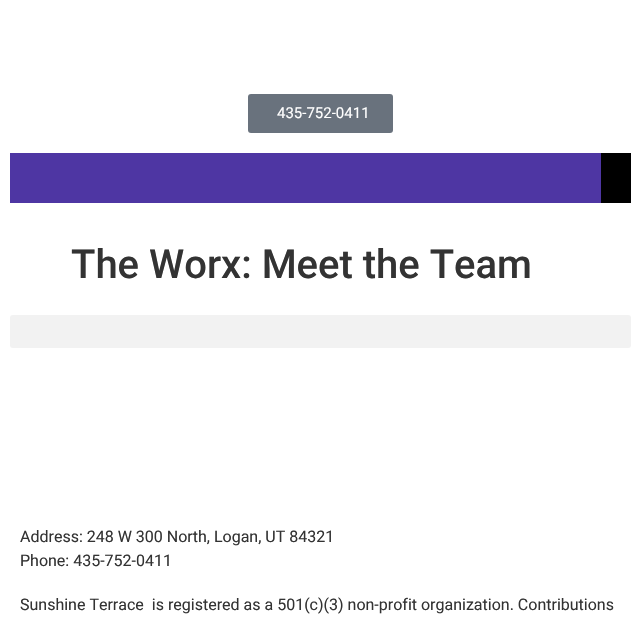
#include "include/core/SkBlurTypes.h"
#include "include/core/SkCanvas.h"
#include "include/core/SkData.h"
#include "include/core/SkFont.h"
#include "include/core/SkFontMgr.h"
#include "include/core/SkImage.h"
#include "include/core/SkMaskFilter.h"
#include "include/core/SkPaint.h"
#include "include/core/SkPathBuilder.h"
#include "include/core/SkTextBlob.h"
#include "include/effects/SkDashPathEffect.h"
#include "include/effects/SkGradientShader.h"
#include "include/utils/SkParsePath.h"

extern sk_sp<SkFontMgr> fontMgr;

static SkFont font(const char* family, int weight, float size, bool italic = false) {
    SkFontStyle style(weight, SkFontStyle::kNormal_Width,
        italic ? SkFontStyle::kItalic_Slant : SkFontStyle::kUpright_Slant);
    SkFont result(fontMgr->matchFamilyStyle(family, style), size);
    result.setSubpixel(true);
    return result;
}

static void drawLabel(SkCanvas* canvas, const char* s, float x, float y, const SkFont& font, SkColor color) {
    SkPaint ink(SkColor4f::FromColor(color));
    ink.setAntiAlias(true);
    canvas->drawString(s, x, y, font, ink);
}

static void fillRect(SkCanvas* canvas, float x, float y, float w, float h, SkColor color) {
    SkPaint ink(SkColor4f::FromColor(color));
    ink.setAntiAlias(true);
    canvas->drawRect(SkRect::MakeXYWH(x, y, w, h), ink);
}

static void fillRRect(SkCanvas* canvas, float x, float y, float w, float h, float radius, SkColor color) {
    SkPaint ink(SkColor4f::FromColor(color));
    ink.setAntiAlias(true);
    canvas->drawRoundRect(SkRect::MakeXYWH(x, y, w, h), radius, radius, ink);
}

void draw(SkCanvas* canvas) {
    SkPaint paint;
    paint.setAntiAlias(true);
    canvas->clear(0xFFFFFFFF);
    fillRRect(canvas, 248, 94, 145, 39, 3, 0xFF69727D);
    SkFont font1 = font("Roboto", 400, 15);
    drawLabel(canvas, "435-752-0411", 277, 118, font1, 0xFFFFFFFF);
    fillRect(canvas, 10, 153, 591, 50, 0xFF4E36A3);
    fillRect(canvas, 601, 153, 30, 50, 0xFF000000);
    SkFont font2 = font("Roboto", 500, 40);
    drawLabel(canvas, "The Worx: Meet the Team", 71, 278, font2, 0xFF333333);
    fillRRect(canvas, 10, 315, 621, 33, 3, 0xFFF2F2F2);
    SkFont font3 = font("Roboto", 400, 16);
    drawLabel(canvas, "Address: 248 W 300 North, Logan, UT 84321", 20, 542, font3, 0xFF333333);
    drawLabel(canvas, "Phone: 435-752-0411", 20, 566, font3, 0xFF333333);
    drawLabel(canvas, "Sunshine Terrace  is registered as a 501(c)(3) non-profit organization. Contributions", 20, 610, font3, 0xFF333333);
}
